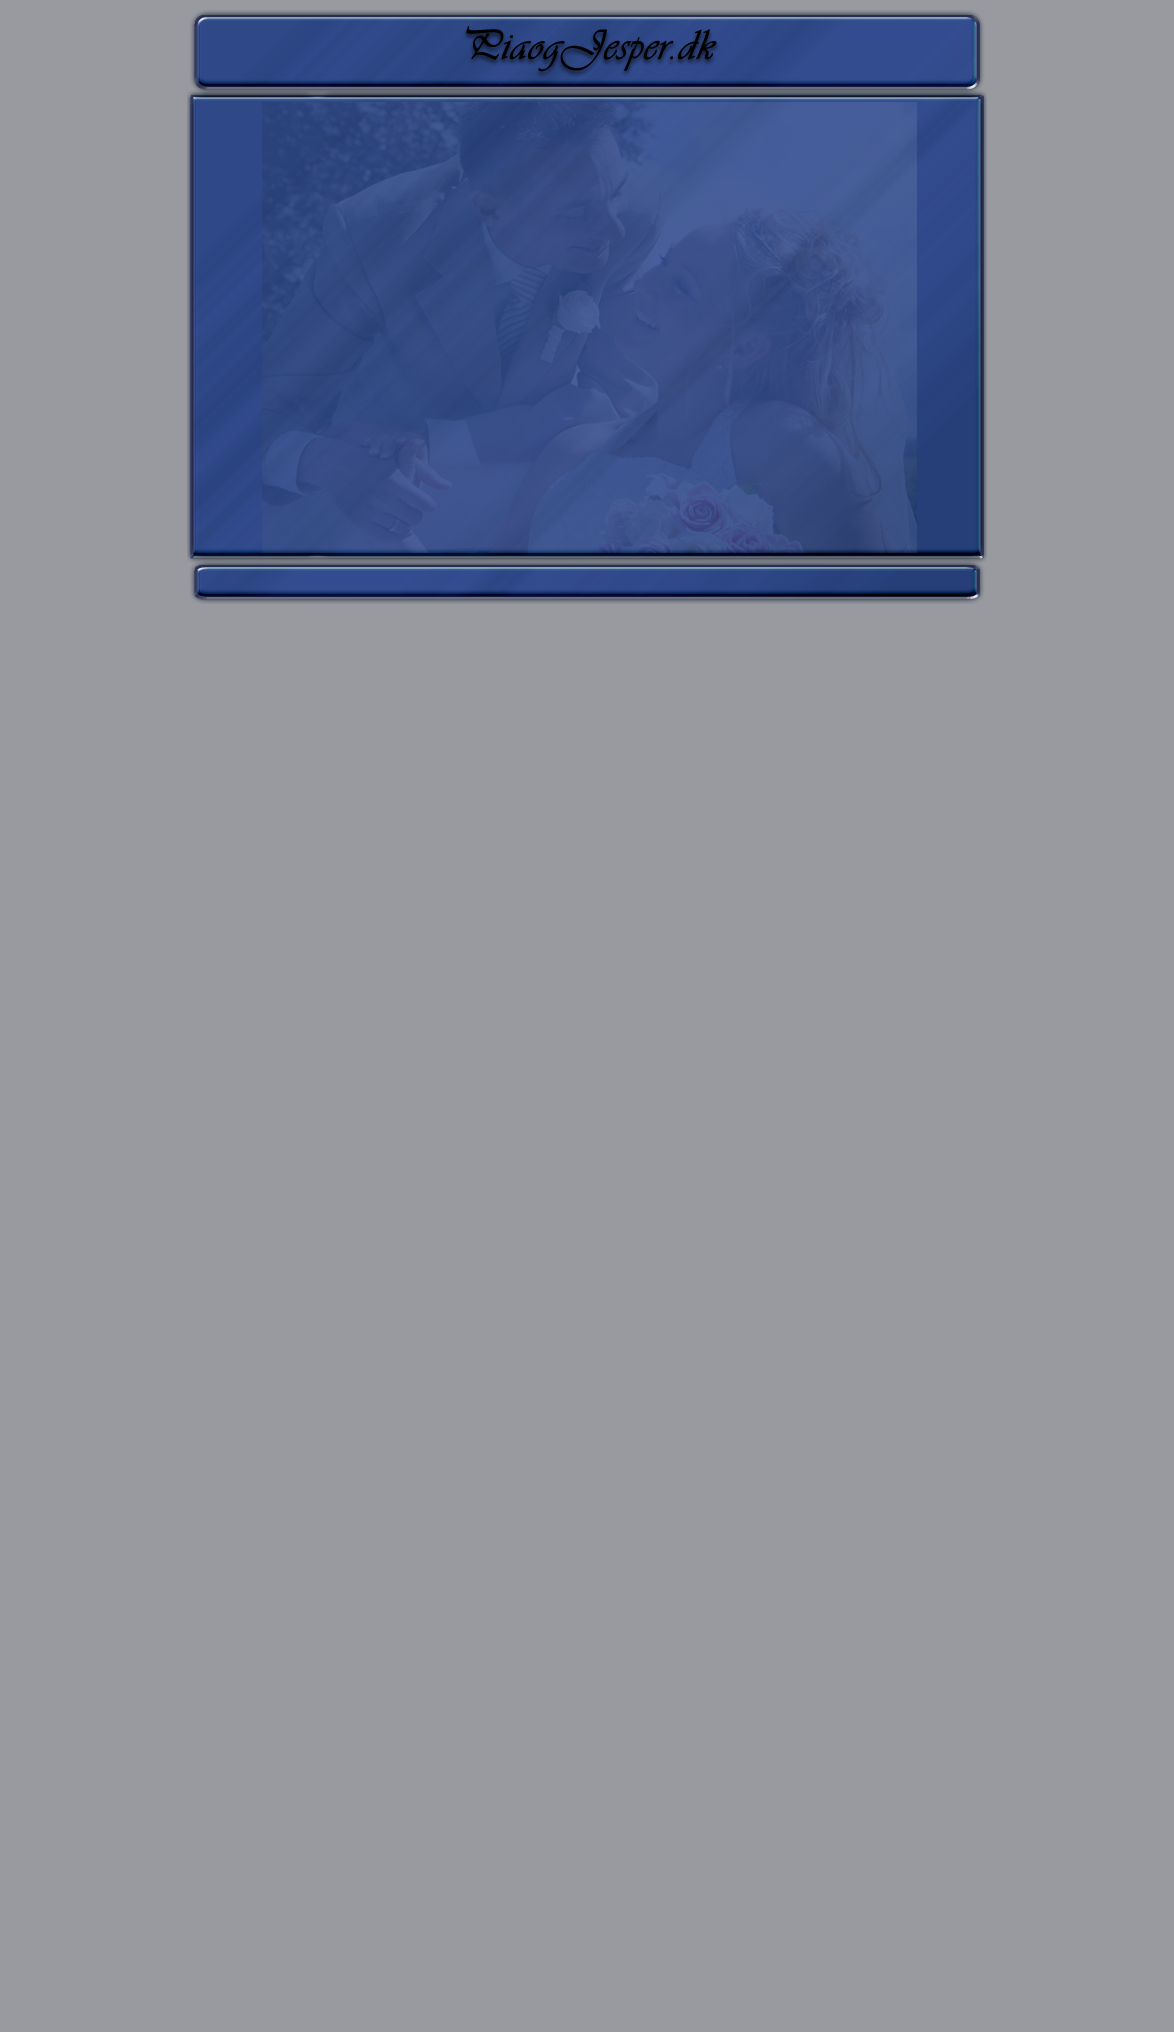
#include "include/core/SkBlurTypes.h"
#include "include/core/SkCanvas.h"
#include "include/core/SkData.h"
#include "include/core/SkFont.h"
#include "include/core/SkFontMgr.h"
#include "include/core/SkImage.h"
#include "include/core/SkMaskFilter.h"
#include "include/core/SkPaint.h"
#include "include/core/SkPathBuilder.h"
#include "include/core/SkTextBlob.h"
#include "include/effects/SkDashPathEffect.h"
#include "include/effects/SkGradientShader.h"
#include "include/utils/SkParsePath.h"

extern sk_sp<SkFontMgr> fontMgr;

static void drawPhoto(SkCanvas* canvas, const char* path, float x, float y, float w, float h) {
    auto image = SkImages::DeferredFromEncodedData(SkData::MakeFromFileName(path));
    canvas->drawImageRect(image, SkRect::MakeXYWH(x, y, w, h), SkSamplingOptions());
}

void draw(SkCanvas* canvas) {
    SkPaint paint;
    paint.setAntiAlias(true);
    canvas->clear(0xFF989AA0);
    drawPhoto(canvas, "assets/img1.png", 187, 10, 800, 594);
}
